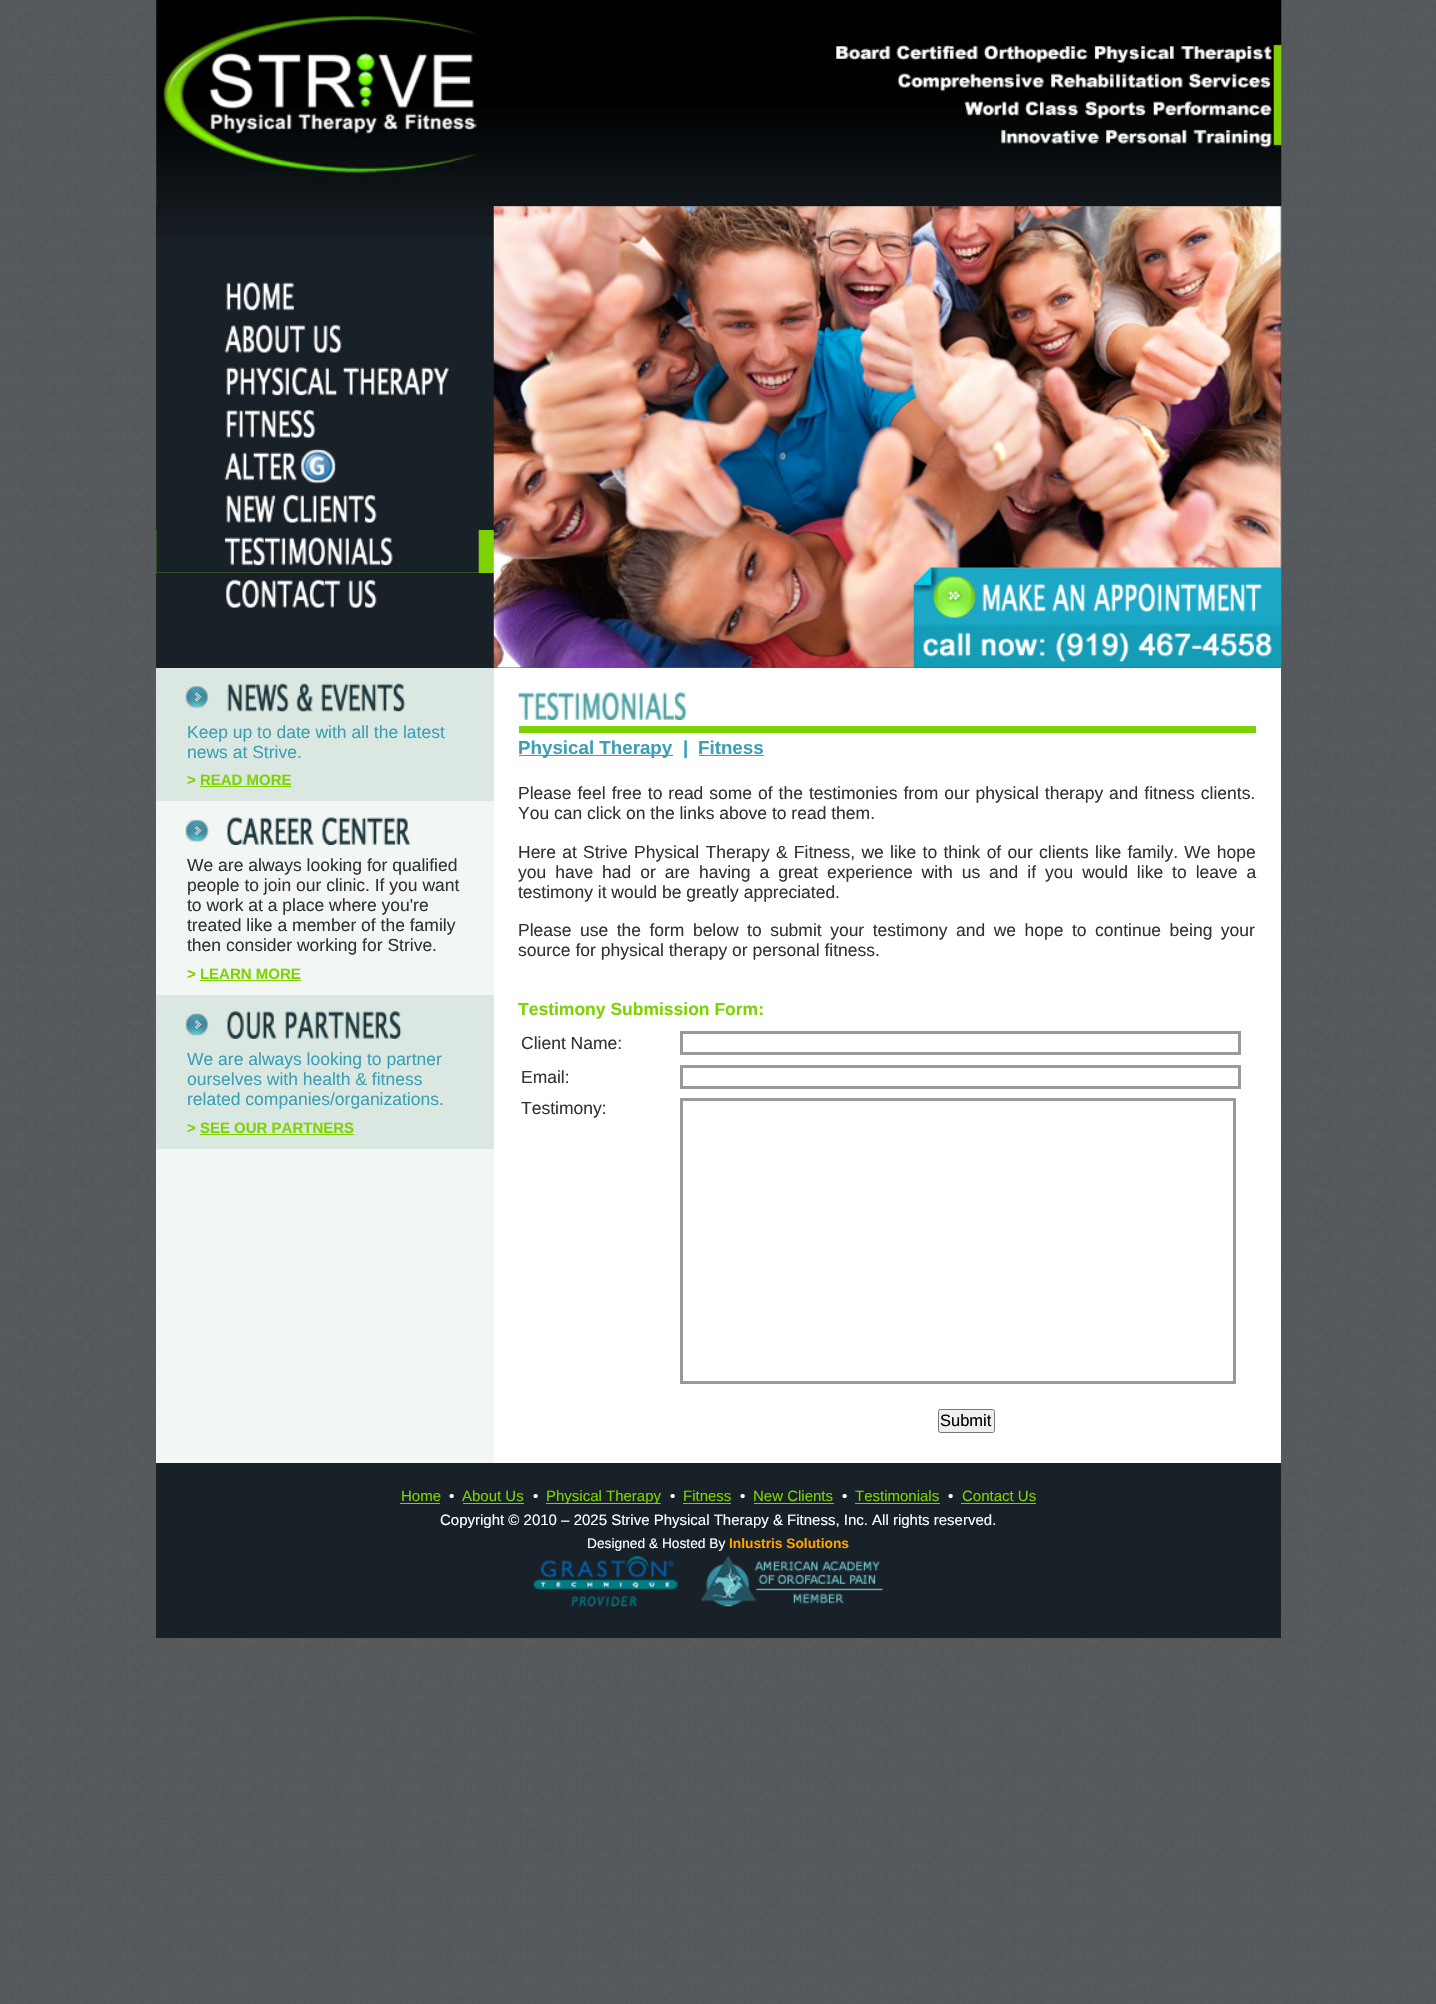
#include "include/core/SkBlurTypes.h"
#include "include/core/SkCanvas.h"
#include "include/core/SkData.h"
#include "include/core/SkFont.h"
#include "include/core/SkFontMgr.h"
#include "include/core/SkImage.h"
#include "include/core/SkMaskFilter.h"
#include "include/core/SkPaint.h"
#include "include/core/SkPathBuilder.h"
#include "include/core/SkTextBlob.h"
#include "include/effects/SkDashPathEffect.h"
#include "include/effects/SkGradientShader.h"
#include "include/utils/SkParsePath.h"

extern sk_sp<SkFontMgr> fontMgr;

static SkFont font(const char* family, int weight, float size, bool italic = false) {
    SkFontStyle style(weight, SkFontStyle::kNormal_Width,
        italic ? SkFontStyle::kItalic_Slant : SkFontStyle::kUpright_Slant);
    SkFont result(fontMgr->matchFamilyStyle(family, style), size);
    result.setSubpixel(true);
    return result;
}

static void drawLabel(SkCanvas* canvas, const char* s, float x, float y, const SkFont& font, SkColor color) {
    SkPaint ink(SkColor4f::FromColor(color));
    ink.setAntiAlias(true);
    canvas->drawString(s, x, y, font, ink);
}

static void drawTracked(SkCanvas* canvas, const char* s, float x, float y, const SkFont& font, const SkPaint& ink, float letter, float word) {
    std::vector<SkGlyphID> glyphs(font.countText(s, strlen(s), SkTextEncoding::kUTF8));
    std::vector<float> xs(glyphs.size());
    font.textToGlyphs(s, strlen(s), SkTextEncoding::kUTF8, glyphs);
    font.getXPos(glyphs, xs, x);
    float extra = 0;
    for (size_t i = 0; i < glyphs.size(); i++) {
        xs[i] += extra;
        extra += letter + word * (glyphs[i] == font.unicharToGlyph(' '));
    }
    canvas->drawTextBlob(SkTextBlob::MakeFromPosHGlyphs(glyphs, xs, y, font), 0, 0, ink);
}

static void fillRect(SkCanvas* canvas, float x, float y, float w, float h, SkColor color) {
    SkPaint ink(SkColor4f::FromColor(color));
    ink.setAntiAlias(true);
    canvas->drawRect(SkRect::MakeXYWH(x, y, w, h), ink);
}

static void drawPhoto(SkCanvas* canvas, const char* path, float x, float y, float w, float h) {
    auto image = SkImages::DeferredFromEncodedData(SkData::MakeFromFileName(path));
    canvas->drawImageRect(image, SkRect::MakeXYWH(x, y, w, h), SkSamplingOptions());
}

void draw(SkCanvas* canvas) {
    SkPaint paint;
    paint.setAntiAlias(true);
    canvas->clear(0xFFFFFFFF);
    drawPhoto(canvas, "assets/img1.png", 0, 0, 1436, 2004);
    drawPhoto(canvas, "assets/img2.png", 156, 0, 1126, 207);
    fillRect(canvas, 156, 206, 338, 462, 0xFF182127);
    drawPhoto(canvas, "assets/img3.png", 156, 206, 338, 31);
    drawPhoto(canvas, "assets/img4.png", 226, 278, 70, 35);
    drawPhoto(canvas, "assets/img5.png", 224, 319, 121, 37);
    drawPhoto(canvas, "assets/img6.png", 226, 360, 224, 40);
    drawPhoto(canvas, "assets/img7.png", 226, 404, 90, 37);
    drawPhoto(canvas, "assets/img8.png", 224, 445, 112, 40);
    drawPhoto(canvas, "assets/img9.png", 226, 489, 151, 38);
    fillRect(canvas, 156, 530, 338, 43, 0xFF7DD301);
    drawPhoto(canvas, "assets/img10.png", 156, 530, 323, 43);
    drawPhoto(canvas, "assets/img11.png", 156, 572, 323, 39);
    drawPhoto(canvas, "assets/img12.png", 493, 206, 789, 462);
    fillRect(canvas, 156, 801, 338, 662, 0xFFF2F7F3);
    fillRect(canvas, 156, 668, 338, 133, 0xFFDBE8E1);
    drawPhoto(canvas, "assets/img13.png", 185, 683, 221, 29);
    SkFont font1 = font("Liberation Sans", 400, 17.5f);
    drawLabel(canvas, "Keep up to date with all the latest", 187, 738, font1, 0xFF3B9FB6);
    drawLabel(canvas, "news at Strive.", 187, 758, font1, 0xFF3B9FB6);
    SkFont font2 = font("Liberation Sans", 700, 15);
    drawLabel(canvas, "> READ MORE", 187, 785, font2, 0xFF7DD301);
    fillRect(canvas, 200, 786, 91, 1, 0xFF7DD301);
    drawPhoto(canvas, "assets/img14.png", 185, 817, 226, 28);
    drawLabel(canvas, "We are always looking for qualified", 187, 871, font1, 0xFF333333);
    drawLabel(canvas, "people to join our clinic. If you want", 187, 891, font1, 0xFF333333);
    drawLabel(canvas, "to work at a place where you're", 187, 911, font1, 0xFF333333);
    drawLabel(canvas, "treated like a member of the family", 187, 931, font1, 0xFF333333);
    drawLabel(canvas, "then consider working for Strive.", 187, 951, font1, 0xFF333333);
    drawLabel(canvas, "> LEARN MORE", 187, 979, font2, 0xFF7DD301);
    fillRect(canvas, 200, 980, 101, 1, 0xFF7DD301);
    fillRect(canvas, 156, 995, 338, 154, 0xFFDBE8E1);
    drawPhoto(canvas, "assets/img15.png", 185, 1011, 217, 28);
    drawLabel(canvas, "We are always looking to partner", 187, 1065, font1, 0xFF3B9FB6);
    drawLabel(canvas, "ourselves with health & fitness", 187, 1085, font1, 0xFF3B9FB6);
    drawLabel(canvas, "related companies/organizations.", 187, 1105, font1, 0xFF3B9FB6);
    drawLabel(canvas, "> SEE OUR PARTNERS", 187, 1133, font2, 0xFF7DD301);
    fillRect(canvas, 200, 1134, 154, 1, 0xFF7DD301);
    fillRect(canvas, 494, 668, 787, 795, 0xFFFFFFFF);
    drawPhoto(canvas, "assets/img16.png", 518, 692, 169, 28);
    fillRect(canvas, 519, 726, 737, 7, 0xFF7DD301);
    fillRect(canvas, 519, 755, 154, 1, 0xFF3B9FB6);
    SkFont font3 = font("Liberation Sans", 700, 18.75f);
    drawLabel(canvas, "Physical Therapy", 518, 754, font3, 0xFF3B9FB6);
    drawLabel(canvas, "|", 683, 754, font3, 0xFF3B9FB6);
    drawLabel(canvas, "Fitness", 698, 754, font3, 0xFF3B9FB6);
    fillRect(canvas, 699, 755, 65, 1, 0xFF3B9FB6);
    paint.setColor(0xFF333333);
    drawTracked(canvas, "Please feel free to read some of the testimonies from our physical therapy and fitness clients.", 518, 799, font1, paint, 0, 1.1f);
    drawLabel(canvas, "You can click on the links above to read them.", 518, 819, font1, 0xFF333333);
    drawTracked(canvas, "Here at Strive Physical Therapy & Fitness, we like to think of our clients like family. We hope", 518, 858, font1, paint, 0, 1.4f);
    drawTracked(canvas, "you have", 518, 878, font1, paint, 0, 4.1f);
    drawTracked(canvas, "had or are having a great experience with us and if you would like to leave a", 602, 878, font1, paint, 0, 4.1f);
    drawLabel(canvas, "testimony it would be greatly appreciated.", 518, 898, font1, 0xFF333333);
    drawTracked(canvas, "Please use the form below to submit your testimony and we hope to continue being your", 518, 936, font1, paint, 0, 3.6f);
    drawLabel(canvas, "source for physical therapy or personal fitness.", 518, 956, font1, 0xFF333333);
    SkFont font4 = font("Liberation Sans", 700, 17.5f);
    drawLabel(canvas, "Testimony Submission Form:", 518, 1015, font4, 0xFF7DD301);
    drawLabel(canvas, "Client Name:", 521, 1049, font1, 0xFF333333);
    paint.setStroke(true);
    paint.setStrokeWidth(3);
    paint.setColor(0xFF999999);
    canvas->drawRect(SkRect::MakeXYWH(681.5f, 1032.5f, 558, 21), paint);
    drawLabel(canvas, "Email:", 521, 1083, font1, 0xFF333333);
    canvas->drawRect(SkRect::MakeXYWH(681.5f, 1066.5f, 558, 21), paint);
    drawLabel(canvas, "Testimony:", 521, 1114, font1, 0xFF333333);
    canvas->drawRect(SkRect::MakeXYWH(681.5f, 1099.5f, 553, 283), paint);
    paint.setStroke(false);
    paint.setColor(0xFFEFEFEF);
    canvas->drawRoundRect(SkRect::MakeXYWH(938.5f, 1409.5f, 56, 23), 2, 2, paint);
    paint.setStroke(true);
    paint.setStrokeWidth(1);
    paint.setColor(0xFF767676);
    canvas->drawRoundRect(SkRect::MakeXYWH(938.5f, 1409.5f, 56, 23), 2, 2, paint);
    SkFont font5 = font("Liberation Sans", 400, 16.5f);
    drawLabel(canvas, "Submit", 940, 1426, font5, 0xFF000000);
    fillRect(canvas, 156, 1463, 1125, 175, 0xFF182127);
    SkFont font6 = font("Liberation Sans", 400, 15);
    drawLabel(canvas, "Home", 401, 1501, font6, 0xFF7DD301);
    fillRect(canvas, 400, 1503, 40, 1, 0xFF7DD301);
    drawLabel(canvas, "•", 449, 1501, font6, 0xFFFFFFFF);
    drawLabel(canvas, "About Us", 462, 1501, font6, 0xFF7DD301);
    fillRect(canvas, 463, 1503, 61, 1, 0xFF7DD301);
    drawLabel(canvas, "•", 533, 1501, font6, 0xFFFFFFFF);
    fillRect(canvas, 546, 1503, 115, 1, 0xFF7DD301);
    drawLabel(canvas, "Physical Therapy", 546, 1501, font6, 0xFF7DD301);
    drawLabel(canvas, "•", 670, 1501, font6, 0xFFFFFFFF);
    drawLabel(canvas, "Fitness", 683, 1501, font6, 0xFF7DD301);
    fillRect(canvas, 683, 1503, 48, 1, 0xFF7DD301);
    drawLabel(canvas, "•", 740, 1501, font6, 0xFFFFFFFF);
    drawLabel(canvas, "New Clients", 753, 1501, font6, 0xFF7DD301);
    fillRect(canvas, 754, 1503, 80, 1, 0xFF7DD301);
    drawLabel(canvas, "•", 842, 1501, font6, 0xFFFFFFFF);
    drawLabel(canvas, "Testimonials", 855, 1501, font6, 0xFF7DD301);
    fillRect(canvas, 855, 1503, 85, 1, 0xFF7DD301);
    drawLabel(canvas, "•", 948, 1501, font6, 0xFFFFFFFF);
    drawLabel(canvas, "Contact Us", 962, 1501, font6, 0xFF7DD301);
    fillRect(canvas, 961, 1503, 75, 1, 0xFF7DD301);
    drawLabel(canvas, "Copyright © 2010 – 2025 Strive Physical Therapy & Fitness, Inc. All rights reserved.", 440, 1525, font6, 0xFFFFFFFF);
    SkFont font7 = font("Liberation Sans", 400, 13.75f);
    drawLabel(canvas, "Designed & Hosted By", 587, 1548, font7, 0xFFFFFFFF);
    SkFont font8 = font("Liberation Sans", 700, 13.75f);
    drawLabel(canvas, "Inlustris Solutions", 729, 1548, font8, 0xFFFFA200);
    drawPhoto(canvas, "assets/img17.png", 533, 1556, 145, 51);
    drawPhoto(canvas, "assets/img18.png", 701, 1556, 182, 51);
}
